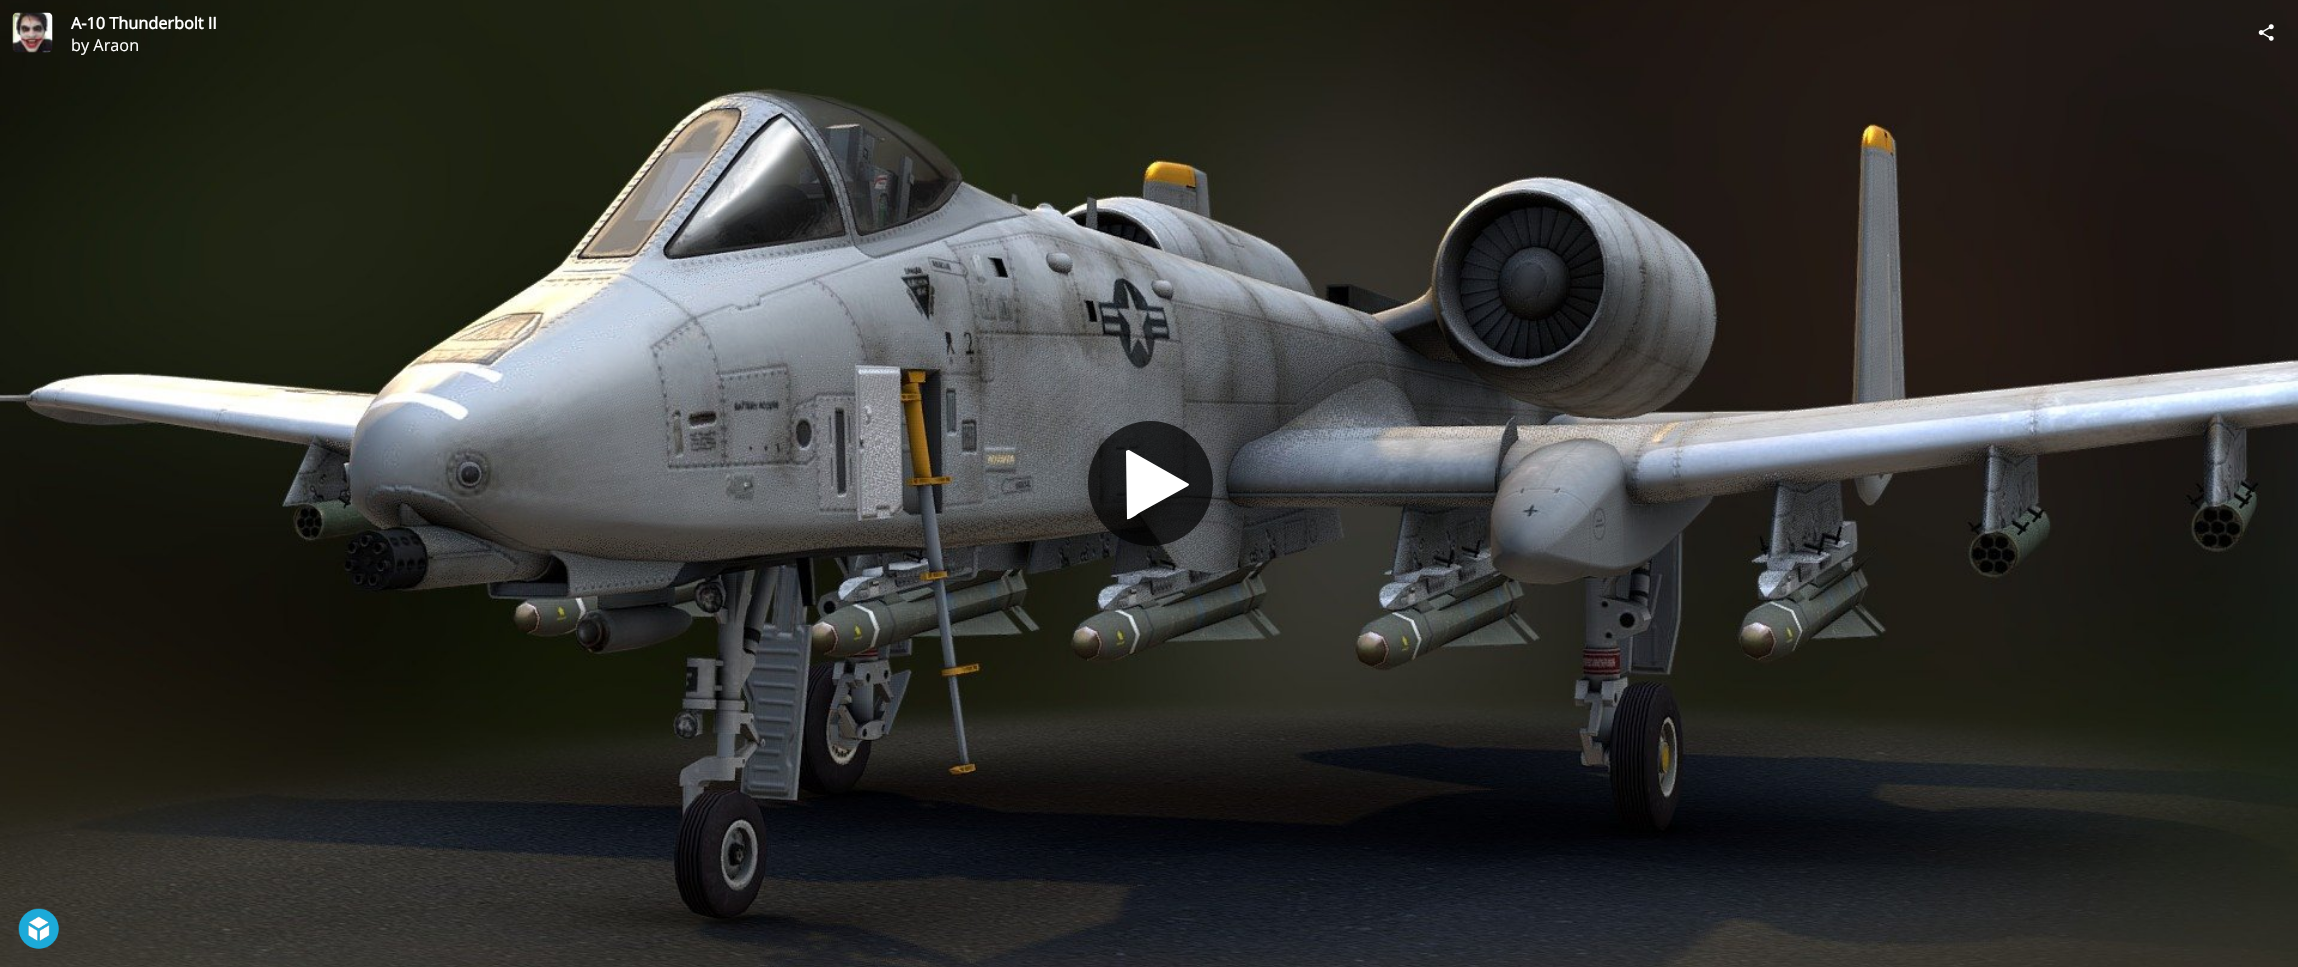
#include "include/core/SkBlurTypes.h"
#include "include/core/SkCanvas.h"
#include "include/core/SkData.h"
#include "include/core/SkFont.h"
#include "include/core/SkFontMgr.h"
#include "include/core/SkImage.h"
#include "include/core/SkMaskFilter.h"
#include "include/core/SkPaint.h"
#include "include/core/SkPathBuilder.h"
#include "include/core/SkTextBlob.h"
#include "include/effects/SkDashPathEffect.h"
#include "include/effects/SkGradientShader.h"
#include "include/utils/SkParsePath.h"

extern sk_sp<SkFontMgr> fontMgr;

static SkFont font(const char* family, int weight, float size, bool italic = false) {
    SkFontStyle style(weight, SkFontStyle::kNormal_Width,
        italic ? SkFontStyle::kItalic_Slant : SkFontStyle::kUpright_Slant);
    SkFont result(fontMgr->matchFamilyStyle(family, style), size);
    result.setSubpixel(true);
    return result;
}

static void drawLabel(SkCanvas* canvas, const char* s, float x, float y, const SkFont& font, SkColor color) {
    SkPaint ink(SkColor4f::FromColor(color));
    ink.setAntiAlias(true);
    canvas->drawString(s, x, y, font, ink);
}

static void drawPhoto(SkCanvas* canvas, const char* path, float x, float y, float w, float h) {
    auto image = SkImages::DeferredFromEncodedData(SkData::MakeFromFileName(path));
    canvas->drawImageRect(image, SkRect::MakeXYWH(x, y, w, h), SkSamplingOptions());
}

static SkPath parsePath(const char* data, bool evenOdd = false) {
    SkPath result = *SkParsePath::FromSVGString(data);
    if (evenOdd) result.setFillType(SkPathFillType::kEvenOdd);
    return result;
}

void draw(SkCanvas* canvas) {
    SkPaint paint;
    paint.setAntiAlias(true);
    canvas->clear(0xFFFFFFFF);
    drawPhoto(canvas, "assets/img1.png", 0, 0, 2298, 967);
    paint.setColor(0xB3000000);
    canvas->drawCircle(1150.5f, 483.5f, 62.5f, paint);
    paint.setColor(0xFFFFFFFF);
    canvas->drawPath(parsePath("M1188 486L1139 513C1138 514 1128 521 1127 519L1126 451C1127 450 1128 450 1129 450L1189 484C1189 484 1189 485 1188 486Z"), paint);
    drawPhoto(canvas, "assets/img2.png", 18, 908, 41, 41);
    drawPhoto(canvas, "assets/img3.png", 12, 12, 41, 41);
    SkFont font1 = font("Open Sans", 700, 16.25f);
    drawLabel(canvas, "A-10 Thunderbolt II", 71, 29, font1, 0xFFFFFFFF);
    SkFont font2 = font("Open Sans", 400, 16.25f);
    drawLabel(canvas, "by Araon", 71, 51, font2, 0xFFFFFFFF);
    drawPhoto(canvas, "assets/img4.png", 2258, 24, 16, 17);
}
